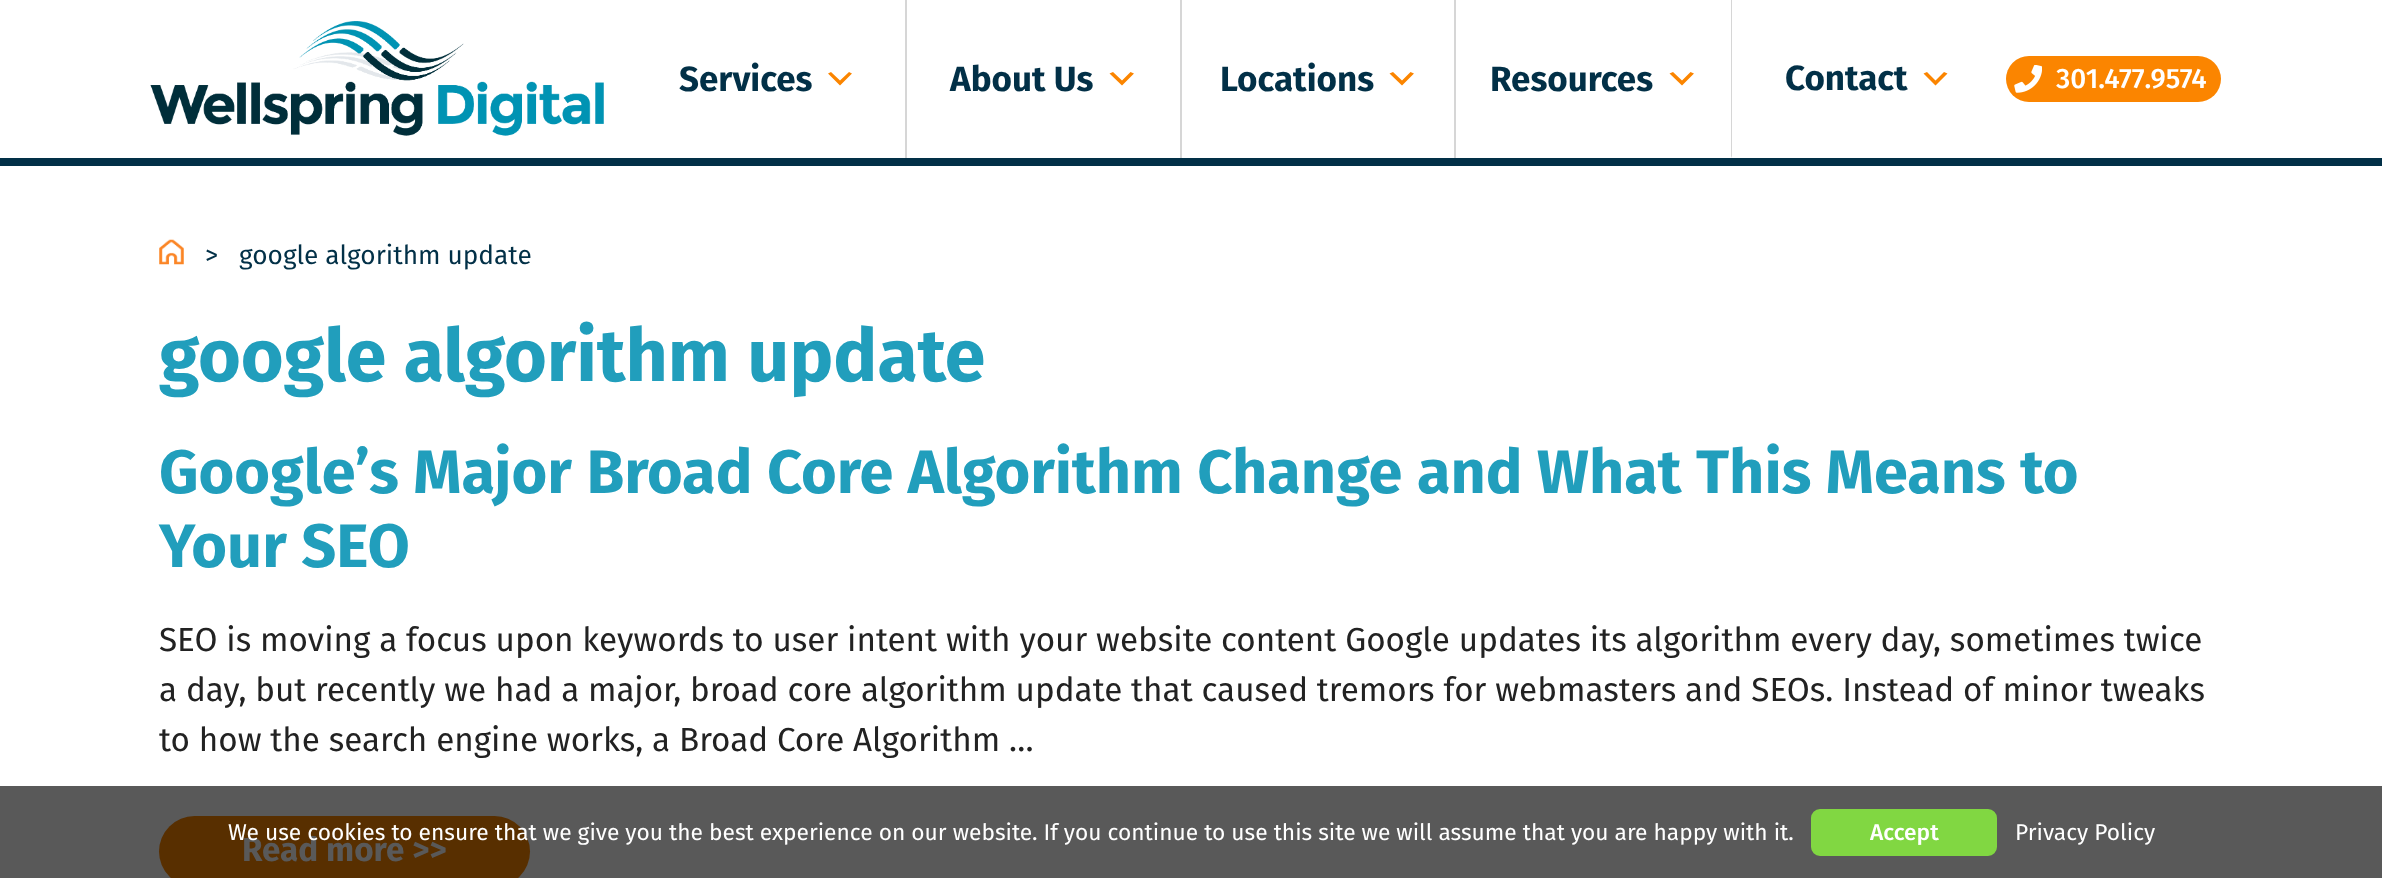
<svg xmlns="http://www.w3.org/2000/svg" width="2382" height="878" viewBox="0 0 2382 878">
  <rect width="100%" height="100%" fill="#fff"/>
  <path d="M0 786h2382v92H0z" fill="#595959"/>
  <path d="M0 158h2382v8H0z" fill="#023047"/>
  <image x="150" y="21" width="454" height="115" href="img/1.png"/>
  <path d="M831 72L840 80.5L849 72L852 73.5L840 85.5L828 73.5Z" fill="#fb8500"/>
  <path d="M905 0h2v158H905z" fill="#d6d6d6"/>
  <path d="M1113 72L1122 80.5L1130.5 72L1134 73.5L1122 85.5L1109.5 73.5Z" fill="#fb8500"/>
  <path d="M1180 0h2v158H1180z" fill="#d6d6d6"/>
  <path d="M1393 72L1402 80.5L1410.5 72L1414 73.5L1402 85.5L1389.5 73.5Z" fill="#fb8500"/>
  <path d="M1454 0h2v158H1454z" fill="#d6d6d6"/>
  <path d="M1673 72L1682 80.5L1690.5 72L1694 73.5L1682 85.5L1669.5 73.5Z" fill="#fb8500"/>
  <path d="M1731 158V0H1732V156Z" fill="#d6d6d6"/>
  <path d="M1927 72L1935.5 80.5L1944 72L1947.5 73.5L1935.5 85.5L1923.5 73.5Z" fill="#fb8500"/>
  <rect x="2006" y="56" width="215" height="46" rx="23" fill="#fb8500"/>
  <image x="2014" y="65" width="28" height="28" href="img/2.png"/>
  <image x="159" y="239" width="25" height="26" href="img/3.png"/>
  <rect x="159" y="816" width="371" height="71" rx="35.5" fill="#582f00"/>
  <rect x="1812" y="810" width="184" height="45" rx="8" fill="#81d742" stroke="#81d742" stroke-width="2"/>
  <g font-family="Fira Sans" font-size="35" font-weight="bold" fill="#023047">
    <text x="679" y="91">Services</text>
    <text x="950" y="91">About Us</text>
    <text x="1220" y="91">Locations</text>
    <text x="1490" y="91">Resources</text>
    <text x="1785" y="90">Contact</text>
  </g>
  <text x="2056" y="88" font-family="Fira Sans" font-size="28" font-weight="500" fill="#fff">301.477.9574</text>
  <g font-family="Fira Sans" font-size="26.25" fill="#023047">
    <text x="205" y="264">&gt;</text>
    <text x="239" y="264">google algorithm update</text>
  </g>
  <text x="159" y="381" font-family="Fira Sans" font-size="73.5" font-weight="bold" fill="#219ebc">google algorithm update</text>
  <g font-family="Fira Sans" font-size="61.25" font-weight="bold" fill="#219ebc">
    <text x="159" y="493">Google’s Major Broad Core Algorithm Change and What This Means to</text>
    <text x="159" y="567">Your SEO</text>
  </g>
  <g font-family="Fira Sans" font-size="33.25" fill="#222">
    <text x="159" y="651">SEO is moving a focus upon keywords to user intent with your website content Google updates its algorithm every day, sometimes twice</text>
    <text x="159" y="701">a day, but recently we had a major, broad core algorithm update that caused tremors for webmasters and SEOs. Instead of minor tweaks</text>
    <text x="159" y="751">to how the search engine works, a Broad Core Algorithm …</text>
  </g>
  <text x="242" y="861" font-family="Fira Sans" font-size="33.25" font-weight="bold" fill="#595959">Read more &gt;&gt;</text>
  <text x="228" y="840" font-family="Fira Sans" font-size="22.75" fill="#fff">We use cookies to ensure that we give you the best experience on our website. If you continue to use this site we will assume that you are happy with it.</text>
  <text x="1870" y="840" font-family="Fira Sans" font-size="22.75" font-weight="500" fill="#fff">Accept</text>
  <text x="2015" y="840" font-family="Fira Sans" font-size="22.75" fill="#fff">Privacy Policy</text>
</svg>
